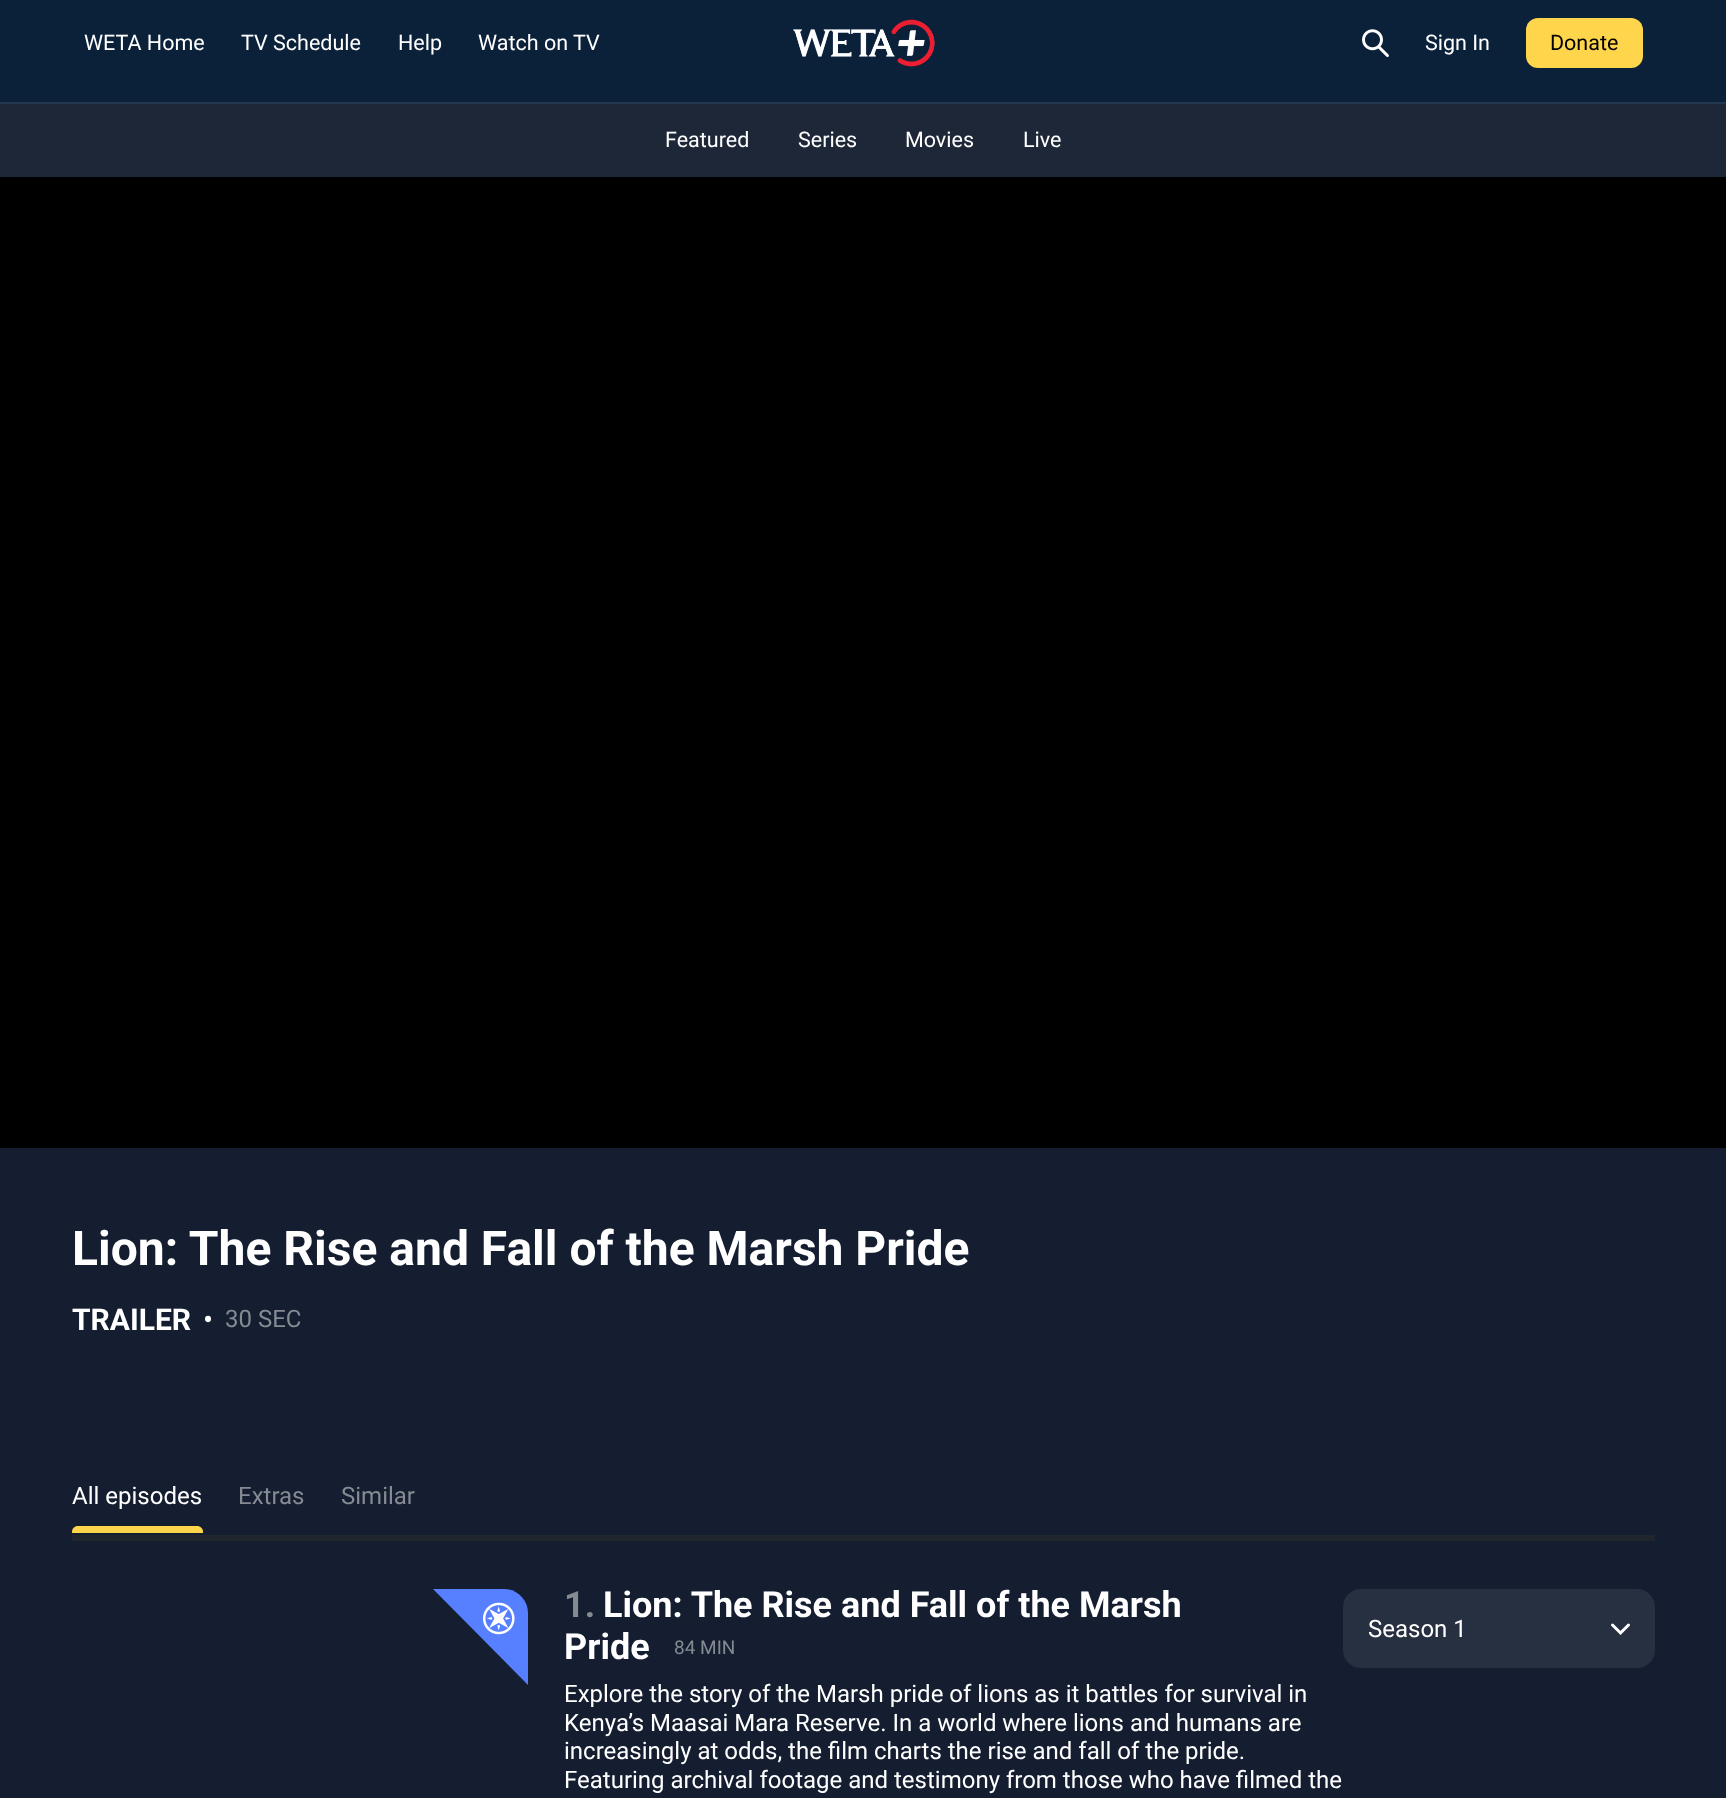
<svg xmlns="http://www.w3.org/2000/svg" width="1726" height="1798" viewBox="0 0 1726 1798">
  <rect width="100%" height="100%" fill="#141e30"/>
  <path d="M0 0h1726v102H0z" fill="#0b213a"/>
  <path d="M0 102h1726v2H0z" fill="#23374e"/>
  <image x="793" y="19" width="142" height="48" href="img/1.png"/>
  <image x="1362" y="29" width="27" height="29" href="img/2.png"/>
  <rect x="1526" y="18" width="117" height="50" rx="12" fill="#ffd54b"/>
  <path d="M0 104h1726v73H0z" fill="#1d2738"/>
  <path d="M0 177h1726v971H0z" fill="#000"/>
  <path d="M72 1535h1583v6H72z" fill="#20252e"/>
  <path d="M78 1526H197C200.5 1526 203 1528.5 203 1532V1533H72V1532C72 1528.5 74.5 1526 78 1526Z" fill="#ffd54b"/>
  <path d="M528 1685V1613C528 1600 517 1589 504 1589H433Z" fill="#5680ff"/>
  <image x="482" y="1602" width="33" height="33" href="img/3.png"/>
  <rect x="1343" y="1589" width="312" height="79" rx="18" fill="#273041"/>
  <path d="M1628.5 1625L1620.5 1633L1612.5 1625" fill="none" stroke="#fff" stroke-width="3" stroke-linecap="round"/>
  <g font-family="Roboto" font-size="21.5" fill="#fff">
    <text x="84" y="50">WETA Home</text>
    <text x="241" y="50">TV Schedule</text>
    <text x="398" y="50">Help</text>
    <text x="478" y="50">Watch on TV</text>
    <text x="1425" y="50">Sign In</text>
  </g>
  <text x="1550" y="50" font-family="Roboto" font-size="21.5" fill="#000">Donate</text>
  <g font-family="Roboto" font-size="21.5" fill="#fff">
    <text x="665" y="147">Featured</text>
    <text x="798" y="147">Series</text>
    <text x="905" y="147">Movies</text>
    <text x="1023" y="147">Live</text>
  </g>
  <text x="72" y="1265" font-family="Roboto" font-size="48" font-weight="bold" fill="#fff">Lion: The Rise and Fall of the Marsh Pride</text>
  <text x="72" y="1330" font-family="Roboto" font-size="30" font-weight="bold" fill="#fff">TRAILER</text>
  <text x="203" y="1330" font-family="Roboto" font-size="30" fill="#fff">•</text>
  <text x="225" y="1327" font-family="Roboto" font-size="24" fill="#858a93">30 SEC</text>
  <text x="72" y="1504" font-family="Roboto" font-size="24" fill="#fff">All episodes</text>
  <g font-family="Roboto" font-size="24" fill="#858a93">
    <text x="238" y="1504">Extras</text>
    <text x="341" y="1504">Similar</text>
  </g>
  <text x="564" y="1617" font-family="Roboto" font-size="36" font-weight="bold" fill="#858a93">1.</text>
  <g font-family="Roboto" font-size="36" font-weight="bold" fill="#fff">
    <text x="603" y="1617">Lion: The Rise and Fall of the Marsh</text>
    <text x="564" y="1659">Pride</text>
  </g>
  <text x="674" y="1654" font-family="Roboto" font-size="19" fill="#858a93">84 MIN</text>
  <g font-family="Roboto" font-size="24" fill="#fff">
    <text x="564" y="1702">Explore the story of the Marsh pride of lions as it battles for survival in</text>
    <text x="564" y="1731">Kenya’s Maasai Mara Reserve. In a world where lions and humans are</text>
    <text x="564" y="1759">increasingly at odds, the film charts the rise and fall of the pride.</text>
    <text x="564" y="1788">Featuring archival footage and testimony from those who have filmed the</text>
    <text x="1368" y="1637">Season 1</text>
  </g>
</svg>
